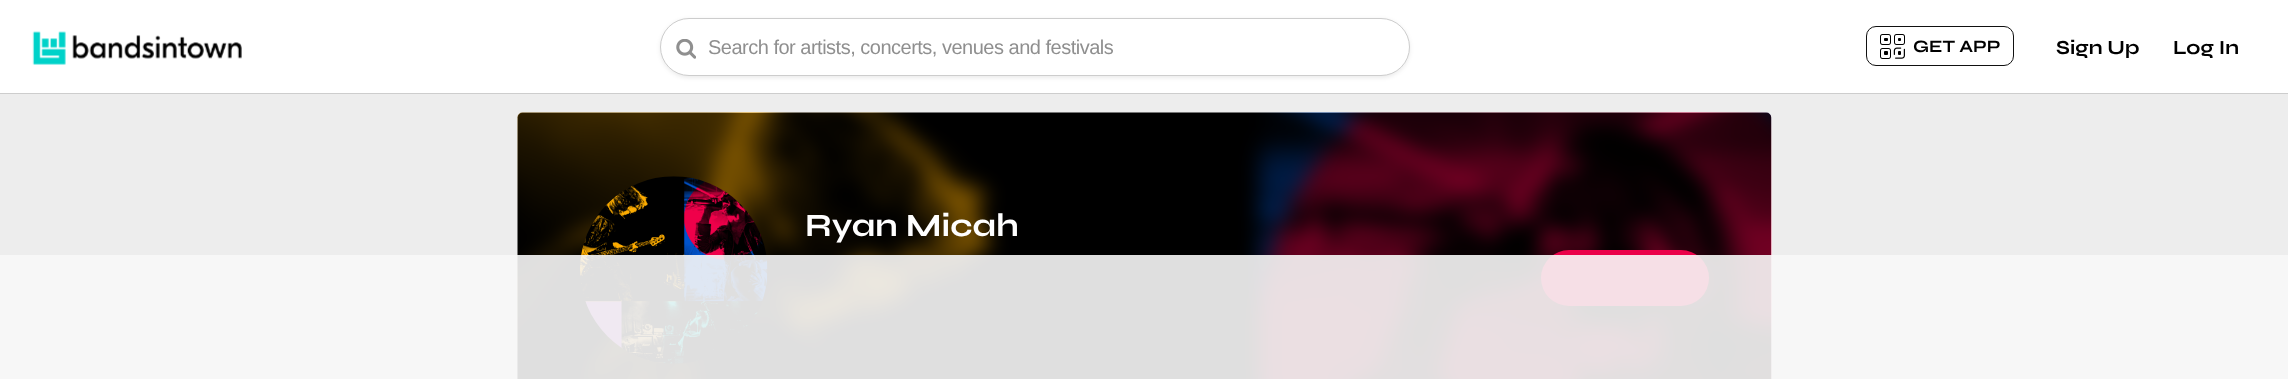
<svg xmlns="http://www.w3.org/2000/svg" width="2288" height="379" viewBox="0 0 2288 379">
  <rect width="100%" height="100%" fill="#ededed"/>
  <path d="M0 0h2288v93H0z" fill="#fff"/>
  <path d="M0 93h2288v1H0z" fill="#cdcdcd"/>
  <image x="32" y="31" width="210" height="34" href="img/1.png"/>
  <rect x="660" y="19" width="750" height="59" rx="29.5" fill="#00000014" filter="blur(2px)"/>
  <rect x="660.5" y="18.5" width="749" height="57" rx="28.5" fill="#fff" stroke="#cdcdcd"/>
  <image x="676" y="39" width="20" height="20" href="img/2.png"/>
  <rect x="1866.5" y="26.5" width="147" height="39" rx="9.5" fill="none" stroke="#111"/>
  <image x="1880" y="34" width="25" height="25" href="img/3.png"/>
  <image x="517" y="112" width="1255" height="267" href="img/4.png"/>
  <rect x="518" y="113" width="1253" height="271" rx="5" fill="#00000080"/>
  <image x="580" y="176" width="188" height="188" href="img/5.png"/>
  <rect x="1541" y="250" width="168" height="56" rx="28" fill="#eb0049"/>
  <path d="M0 255h2288v124H0z" fill="#f7f7f7e6"/>
  <text x="708" y="54" font-family="Liberation Sans" font-size="20" letter-spacing="-0.5" fill="#8f8f8f">Search for artists, concerts, venues and festivals</text>
  <text x="1913" y="52" font-family="Syne" font-size="17.5" font-weight="bold" fill="#000">GET APP</text>
  <g font-family="Syne" font-size="20" font-weight="bold" fill="#000">
    <text x="2056" y="54">Sign Up</text>
    <text x="2173" y="54">Log In</text>
  </g>
  <text x="805" y="236" font-family="Syne" font-size="32.5" font-weight="bold" fill="#fff">Ryan Micah</text>
</svg>
